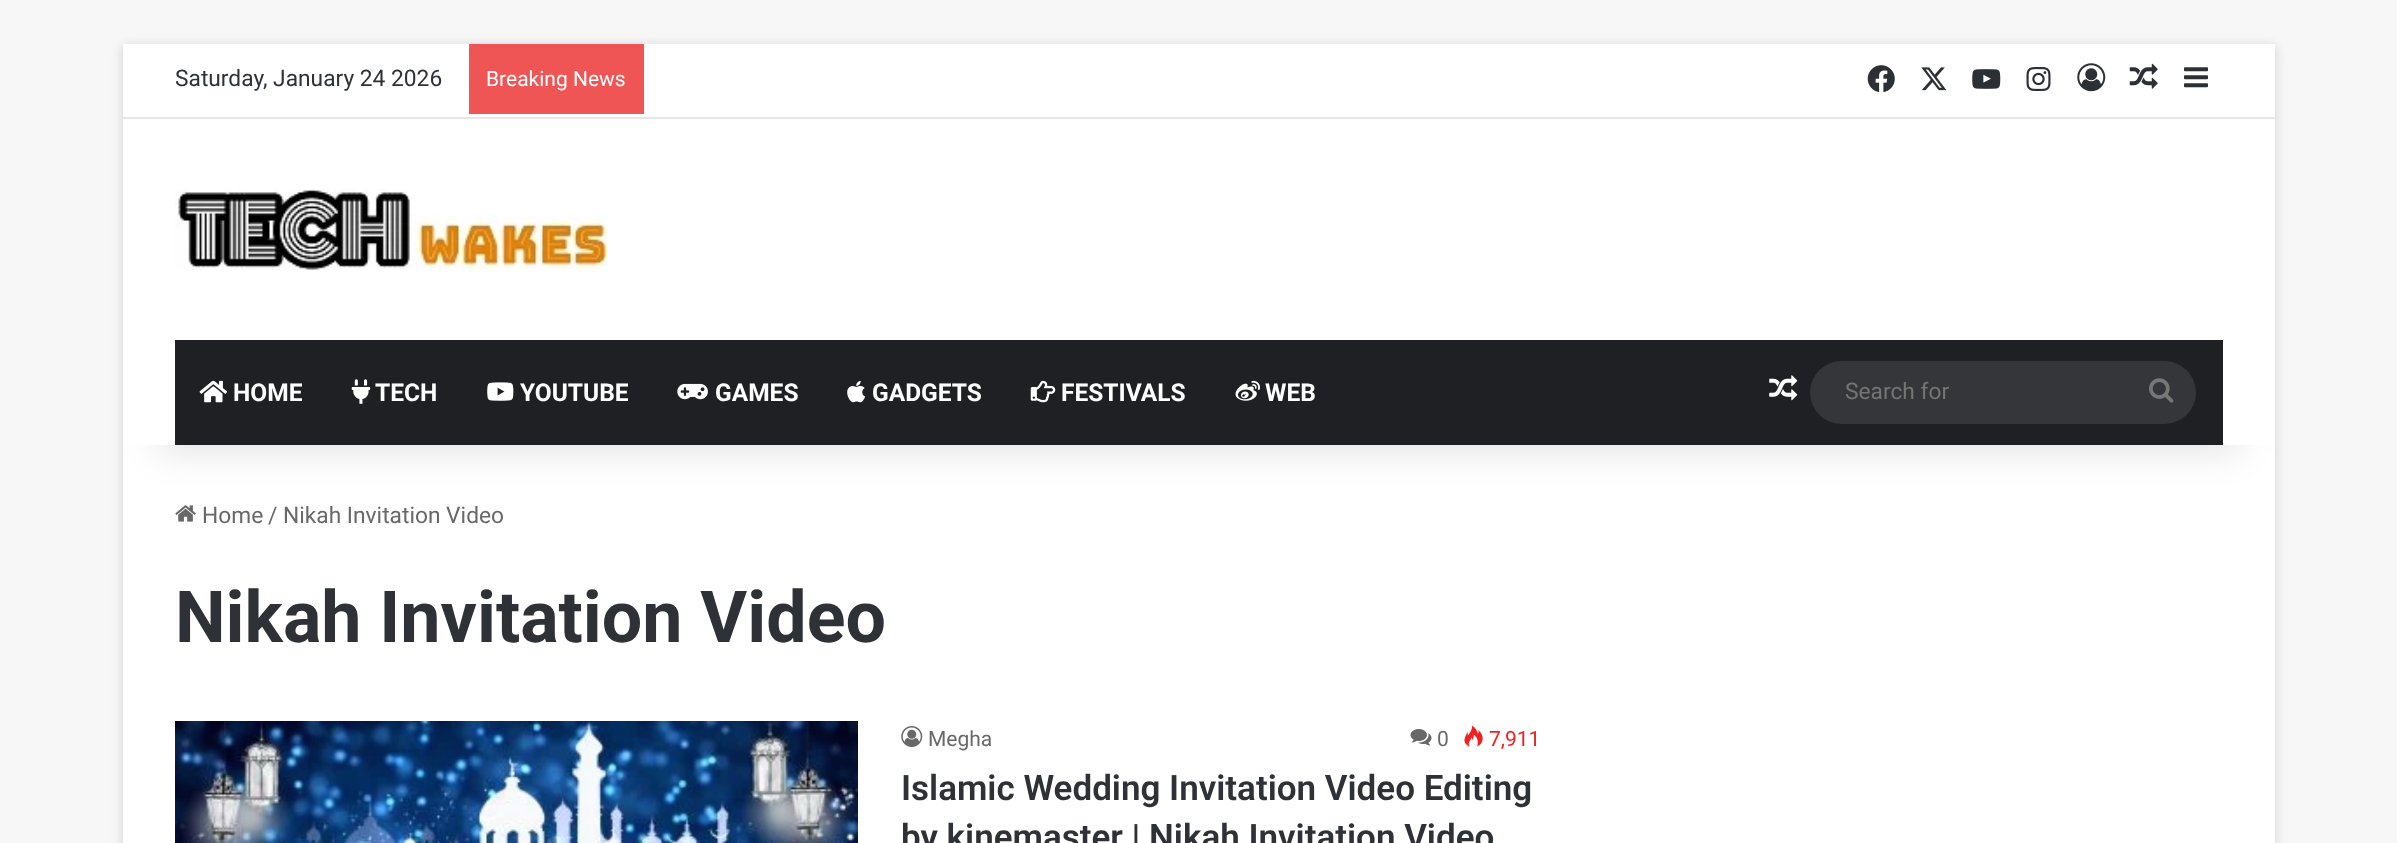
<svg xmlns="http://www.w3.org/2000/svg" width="2397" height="843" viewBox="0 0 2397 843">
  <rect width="100%" height="100%" fill="#f7f7f7"/>
  <path d="M123 46h2152v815H123z" fill="#ababab80" filter="blur(6px)"/>
  <path d="M123 445h2152v398H123z" fill="#fff"/>
  <image x="175" y="505" width="21" height="17" href="img/18.png"/>
  <path d="M158 123h2082v330H158z" fill="#0000001a" filter="blur(17.5px)"/>
  <path d="M123 44h2152v401H123z" fill="#fff"/>
  <path d="M123 117h2152v2H123z" fill="#e6e6e6"/>
  <path d="M469 44h175v70H469z" fill="#f05555"/>
  <image x="1867" y="65" width="28" height="28" href="img/1.png"/>
  <image x="1921" y="67" width="26" height="24" href="img/2.png"/>
  <image x="1972" y="69" width="29" height="20" href="img/3.png"/>
  <image x="2026" y="67" width="25" height="24" href="img/4.png"/>
  <image x="2077" y="63" width="29" height="29" href="img/5.png"/>
  <image x="2129" y="63" width="29" height="26" href="img/6.png"/>
  <image x="2184" y="67" width="24" height="21" href="img/7.png"/>
  <image x="175" y="189" width="433" height="81" href="img/8.png"/>
  <path d="M175 340h2048v105H175z" fill="#1f2024"/>
  <image x="199" y="380" width="29" height="23" href="img/9.png"/>
  <image x="351" y="379" width="20" height="25" href="img/10.png"/>
  <image x="487" y="382" width="27" height="19" href="img/11.png"/>
  <image x="677" y="383" width="31" height="17" href="img/12.png"/>
  <image x="847" y="380" width="19" height="23" href="img/13.png"/>
  <image x="1030" y="380" width="26" height="23" href="img/14.png"/>
  <image x="1235" y="380" width="25" height="21" href="img/15.png"/>
  <image x="1769" y="375" width="29" height="26" href="img/16.png"/>
  <rect x="1810" y="361" width="386" height="63" rx="31.5" fill="#35363a"/>
  <image x="2149" y="378" width="25" height="25" href="img/17.png"/>
  <image x="175" y="721" width="683" height="122" href="img/19.png"/>
  <image x="901" y="726" width="22" height="21" href="img/20.png"/>
  <image x="1410" y="729" width="22" height="17" href="img/21.png"/>
  <image x="1464" y="725" width="19" height="22" href="img/22.png"/>
  <text x="175" y="86" font-family="Roboto" font-size="22.75" fill="#2e3136">Saturday, January 24 2026</text>
  <text x="486" y="86" font-family="Roboto" font-size="21" fill="#fff">Breaking News</text>
  <g font-family="Roboto" font-size="24.5" font-weight="bold" fill="#fff">
    <text x="233" y="401">HOME</text>
    <text x="375" y="401">TECH</text>
    <text x="520" y="401">YOUTUBE</text>
    <text x="715" y="401">GAMES</text>
    <text x="872" y="401">GADGETS</text>
    <text x="1061" y="401">FESTIVALS</text>
    <text x="1265" y="401">WEB</text>
  </g>
  <text x="1845" y="399" font-family="Roboto" font-size="22.75" fill="#757575">Search for</text>
  <g font-family="Roboto" font-size="22.75" fill="#686868">
    <text x="202" y="523">Home</text>
    <text x="268" y="523">/</text>
    <text x="283" y="523">Nikah Invitation Video</text>
  </g>
  <text x="175" y="642" font-family="Roboto" font-size="71.75" font-weight="bold" fill="#2e3136">Nikah Invitation Video</text>
  <g font-family="Roboto" font-size="21" fill="#686868">
    <text x="928" y="746">Megha</text>
    <text x="1437" y="746">0</text>
  </g>
  <text x="1489" y="746" font-family="Roboto" font-size="21" fill="#f12020">7,911</text>
  <g font-family="Roboto" font-size="35" font-weight="600" fill="#2e3136">
    <text x="901" y="800">Islamic Wedding Invitation Video Editing</text>
    <text x="901" y="849">by kinemaster | Nikah Invitation Video</text>
  </g>
</svg>
